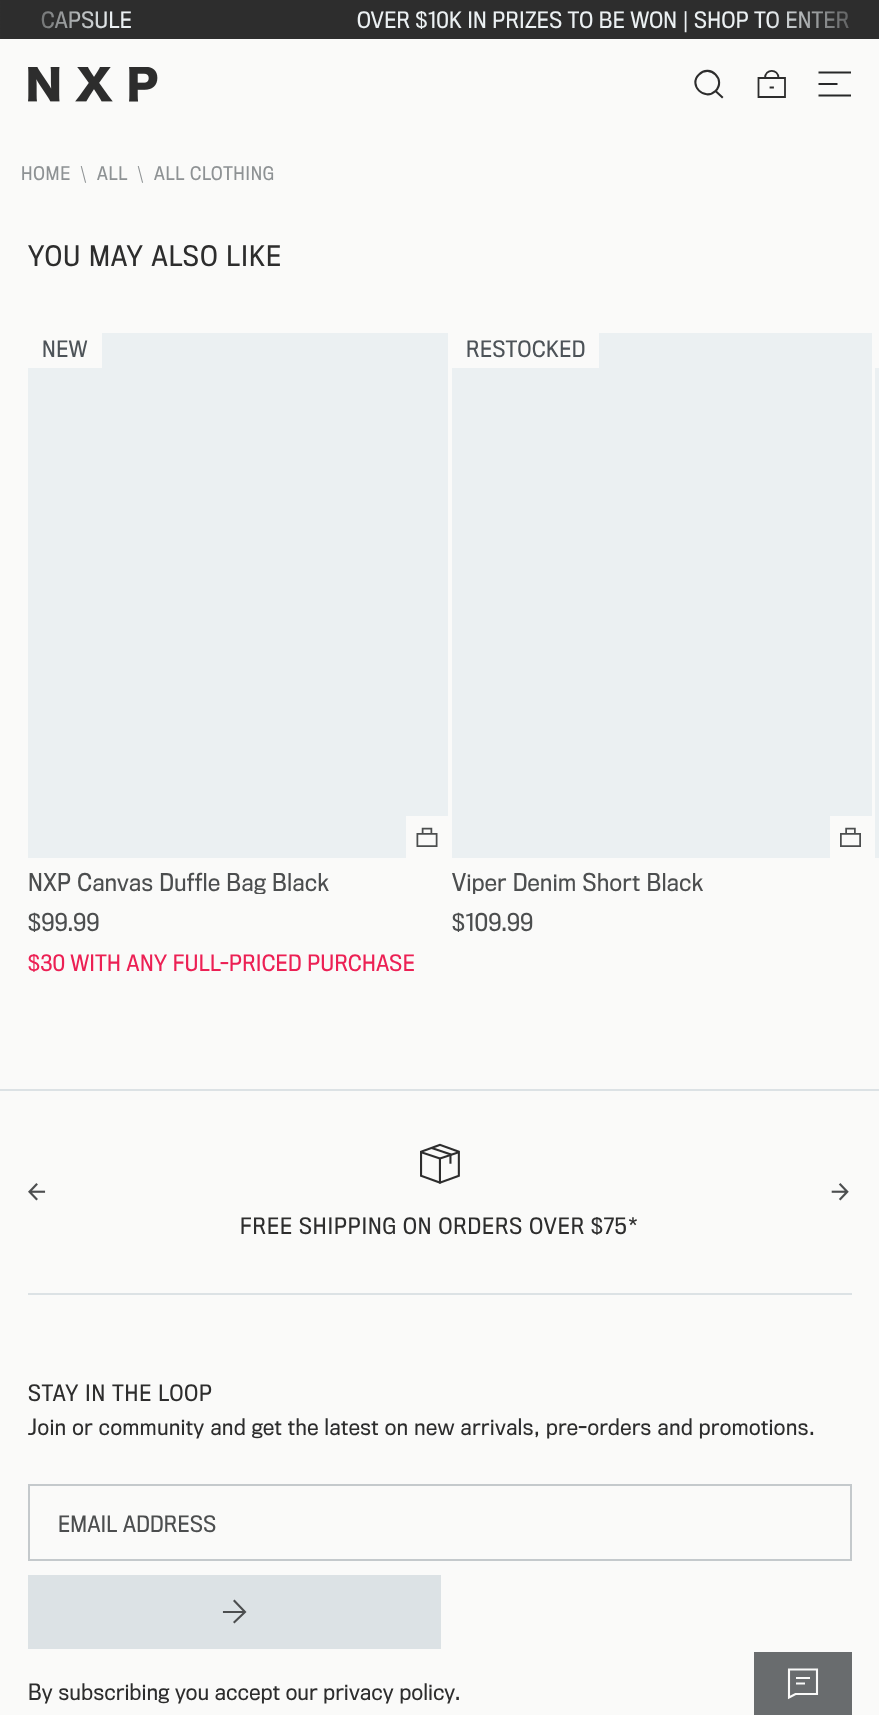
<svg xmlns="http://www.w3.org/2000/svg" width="879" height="1715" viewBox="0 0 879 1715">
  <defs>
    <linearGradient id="g1" gradientUnits="userSpaceOnUse" x1="0" y1="19" x2="112" y2="19"><stop offset="0" stop-color="#2d2d2d"/><stop offset="1" stop-color="#2d2d2d" stop-opacity="0"/></linearGradient>
    <linearGradient id="g2" gradientUnits="userSpaceOnUse" x1="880" y1="19" x2="768" y2="19"><stop offset="0" stop-color="#2d2d2d"/><stop offset="1" stop-color="#2d2d2d" stop-opacity="0"/></linearGradient>
    <clipPath id="clip1"><path d="M28 872h420v22H28z"/></clipPath>
    <clipPath id="clip2"><path d="M452 872h420v22H452z"/></clipPath>
  </defs>
  <rect width="100%" height="100%" fill="#fafaf9"/>
  <path d="M1 0h878v39H1z" fill="#2d2d2d"/>
  <image x="28" y="67" width="130" height="35" href="img/1.png"/>
  <path d="M715.5 91C726.5 80 710 63.5 699 74.5C688 85 704.5 101.5 715.5 91ZM715.5 91L722 97" fill="none" stroke="#2d2d2d" stroke-width="2.1" stroke-linecap="square"/>
  <path d="M773 87.5H770.5M778.5 78C778.5 68.5 765 68.5 765 78M758.5 78H785V97H758.5Z" fill="none" stroke="#2d2d2d" stroke-width="1.8" stroke-linecap="square"/>
  <path d="M818.5 72.5H851M818.5 95.5H851M818.5 84H837.5" fill="none" stroke="#272829" stroke-width="2.1"/>
  <path d="M28 333h420v525H28z" fill="#ebf0f2"/>
  <path d="M406 816h42v42H406z" fill="#fafaf9"/>
  <image x="416" y="827" width="22" height="20" href="img/2.png"/>
  <path d="M28 333h74v35H28z" fill="#fafaf9"/>
  <path d="M452 333h420v525H452z" fill="#ebf0f2"/>
  <path d="M830 816h42v42H830z" fill="#fafaf9"/>
  <image x="840" y="827" width="21" height="20" href="img/3.png"/>
  <path d="M452 333h147v35H452z" fill="#fafaf9"/>
  <path d="M875 368h4v490H875z" fill="#ebf0f2"/>
  <path d="M0 1089h879v2H0z" fill="#dce2e5"/>
  <image x="28" y="1183" width="18" height="18" href="img/4.png"/>
  <image x="831" y="1183" width="18" height="18" href="img/5.png"/>
  <image x="420" y="1143" width="40" height="41" href="img/6.png"/>
  <path d="M28 1293h824v2H28z" fill="#dce2e5"/>
  <path d="M29 1485h822v75H29z" fill="none" stroke="#c4c9cc" stroke-width="2"/>
  <path d="M28 1575h413v74H28z" fill="#dce2e5"/>
  <path d="M234.5 1622L245 1612L234.5 1601M224 1612H243" fill="none" stroke="#4c4e4f" stroke-width="2.1" stroke-linecap="square"/>
  <path d="M754 1652h98v63H754z" fill="#696c6e"/>
  <path d="M796 1683.5H805M796 1678H810M817 1669.5V1694H795.5L789 1697.5V1669.5Z" fill="none" stroke="#fafaf9" stroke-width="2.1"/>
  <text x="41" y="28" font-family="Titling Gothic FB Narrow" font-size="21" letter-spacing="0.4" fill="#ebf0f2">CAPSULE</text>
  <path d="M0 0h107v39H0z" fill="url(#g1)"/>
  <text x="357" y="28" font-family="Titling Gothic FB Narrow" font-size="21" letter-spacing="0.4" fill="#ebf0f2">OVER $10K IN PRIZES TO BE WON | SHOP TO ENTER</text>
  <path d="M770 11h80v17H770z" fill="url(#g2)"/>
  <g font-family="Titling Gothic FB Narrow" font-size="17.5" letter-spacing="0.75" fill="#8e9294">
    <text x="21" y="180">HOME</text>
    <text x="81" y="180">\</text>
    <text x="97" y="180">ALL</text>
    <text x="138" y="180">\</text>
    <text x="154" y="180">ALL CLOTHING</text>
  </g>
  <text x="28" y="266" font-family="Titling Gothic FB Narrow" font-size="26.25" letter-spacing="1.25" fill="#2d2d2d">YOU MAY ALSO LIKE</text>
  <text x="42" y="357" font-family="Titling Gothic FB Narrow" font-size="21" letter-spacing="0.63" fill="#4d5358">NEW</text>
  <g clip-path="url(#clip1)">
    <text x="28" y="891" font-family="Titling Gothic FB Narrow" font-size="22.75" letter-spacing="0.5" fill="#4c4e4f">NXP Canvas Duffle Bag Black</text>
  </g>
  <text x="28" y="931" font-family="Titling Gothic FB Narrow" font-size="22.75" letter-spacing="0.5" fill="#4c4e4f">$99.99</text>
  <text x="28" y="971" font-family="Titling Gothic FB Narrow" font-size="21" letter-spacing="0.45" fill="#ec2054">$30 WITH ANY FULL-PRICED PURCHASE</text>
  <text x="466" y="357" font-family="Titling Gothic FB Narrow" font-size="21" letter-spacing="0.63" fill="#4d5358">RESTOCKED</text>
  <g clip-path="url(#clip2)">
    <text x="452" y="891" font-family="Titling Gothic FB Narrow" font-size="22.75" letter-spacing="0.5" fill="#4c4e4f">Viper Denim Short Black</text>
  </g>
  <text x="452" y="931" font-family="Titling Gothic FB Narrow" font-size="22.75" letter-spacing="0.5" fill="#4c4e4f">$109.99</text>
  <g font-family="Titling Gothic FB Narrow" font-size="21" letter-spacing="1.05" fill="#2d2d2d">
    <text x="240" y="1234">FREE SHIPPING ON ORDERS OVER $75*</text>
    <text x="28" y="1401">STAY IN THE LOOP</text>
  </g>
  <text x="28" y="1435" font-family="Titling Gothic FB Narrow" font-size="21" letter-spacing="0.63" fill="#2d2d2d">Join or community and get the latest on new arrivals, pre-orders and promotions.</text>
  <text x="58" y="1532" font-family="Titling Gothic FB Narrow" font-size="21" letter-spacing="0.4" fill="#4c4e4f">EMAIL ADDRESS</text>
  <text x="28" y="1700" font-family="Titling Gothic FB Narrow" font-size="21" letter-spacing="0.45" fill="#2d2d2d">By subscribing you accept our privacy policy.</text>
</svg>
